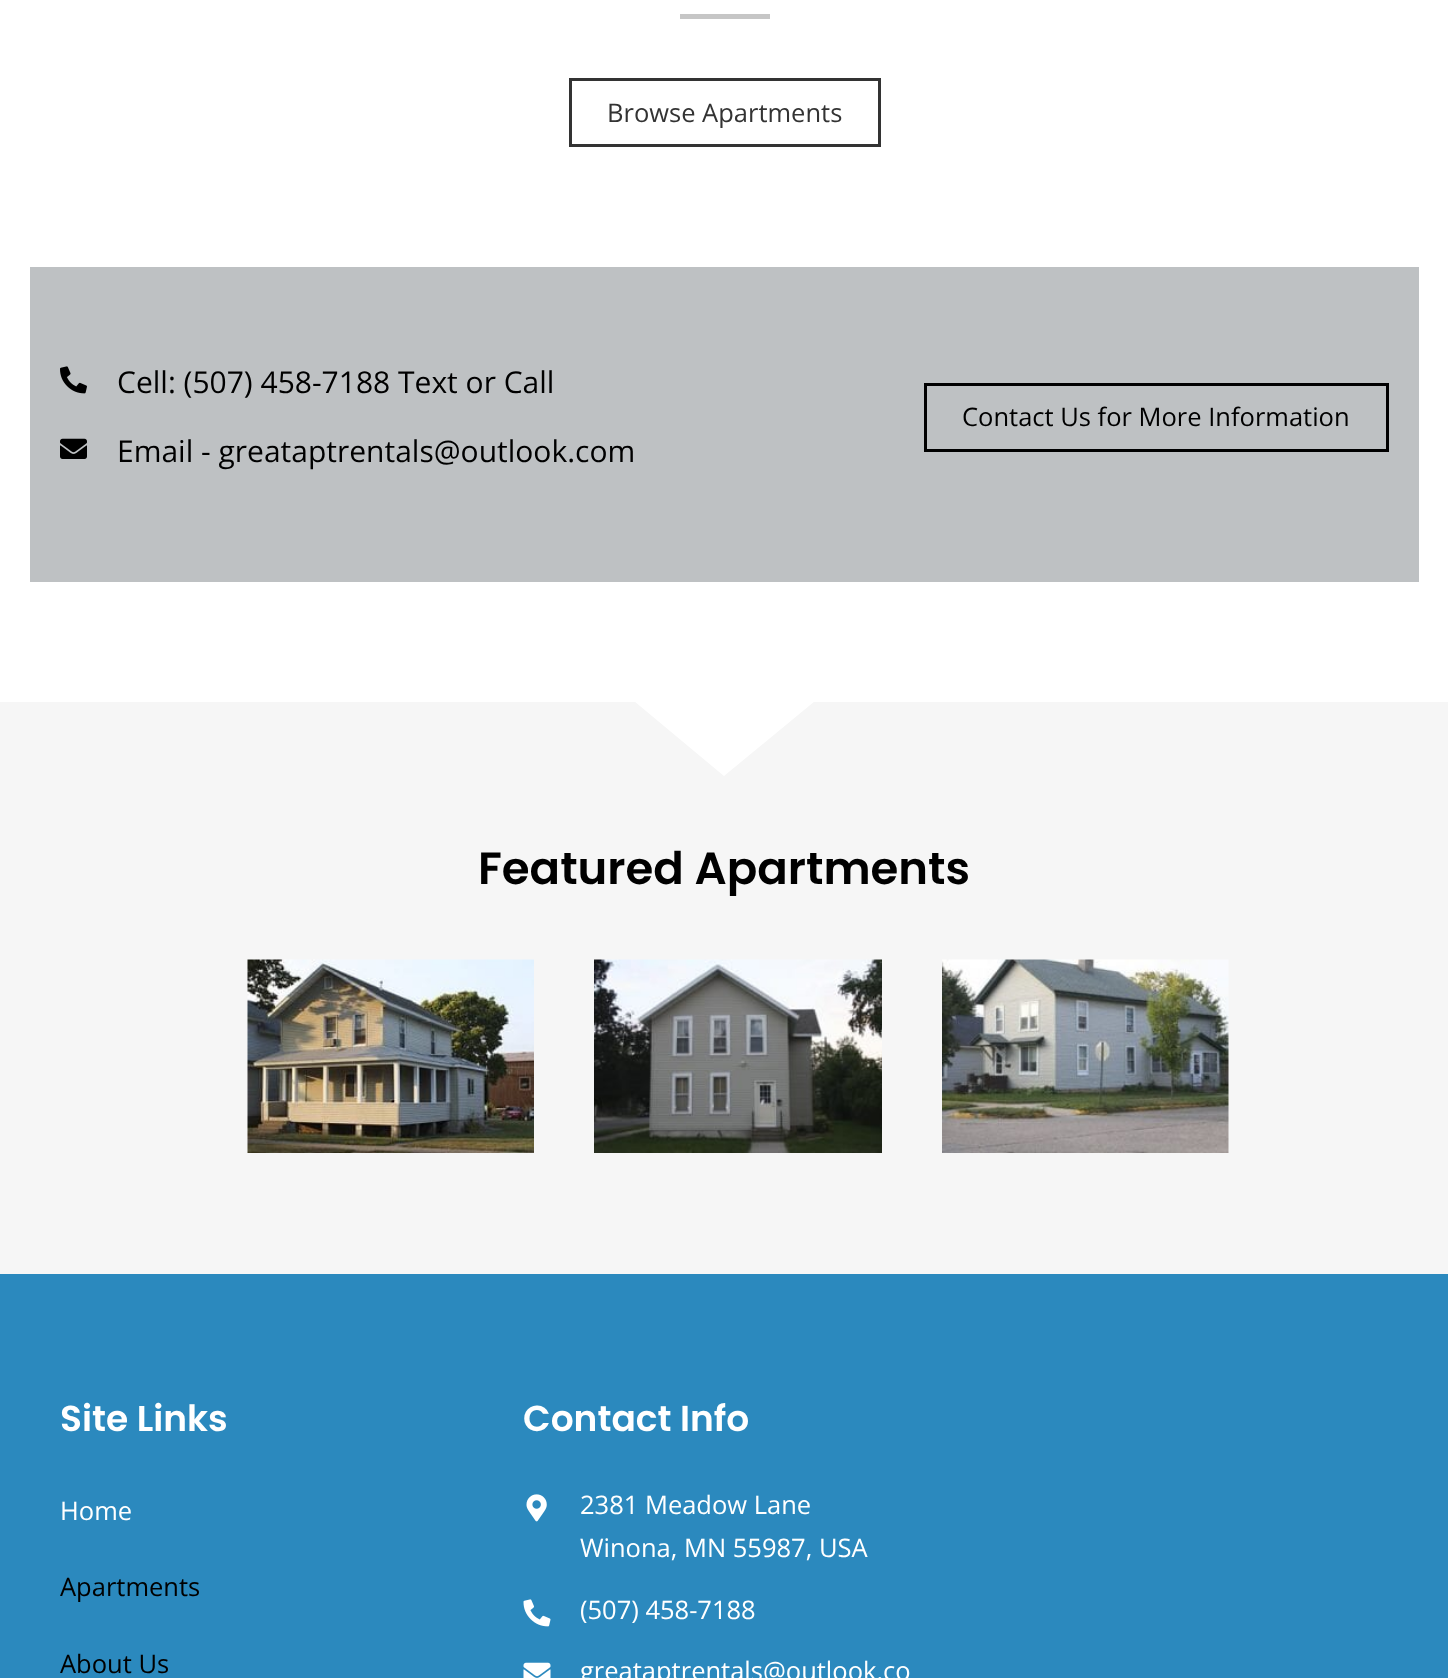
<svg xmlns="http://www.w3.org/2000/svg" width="1448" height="1678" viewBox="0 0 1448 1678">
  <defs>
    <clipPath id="clip1"><path d="M0 701h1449v75H0z"/></clipPath>
  </defs>
  <rect width="100%" height="100%" fill="#fff"/>
  <path d="M680 14h90v5H680z" fill="#c6c6c6"/>
  <path d="M570.5 79.5h309v66H570.5z" fill="none" stroke="#333" stroke-width="3"/>
  <path d="M30 267h1389v315H30z" fill="#bec1c3"/>
  <image x="60" y="366" width="27" height="28" href="img/1.png"/>
  <image x="60" y="438" width="27" height="21" href="img/2.png"/>
  <path d="M925.5 384.5h462v66H925.5z" fill="none" stroke="#000" stroke-width="3"/>
  <path d="M0 702h1448v572H0z" fill="#f6f6f6"/>
  <g clip-path="url(#clip1)">
    <path d="M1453 701H815L724 776L634 701H-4V700H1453Z" fill="#fff"/>
  </g>
  <image x="247" y="959" width="287" height="194" href="img/3.png"/>
  <image x="594" y="959" width="288" height="194" href="img/4.png"/>
  <image x="942" y="959" width="287" height="194" href="img/5.png"/>
  <path d="M0 1274h1448v404H0z" fill="#2b89be"/>
  <image x="526" y="1494" width="21" height="28" href="img/6.png"/>
  <image x="523" y="1599" width="28" height="28" href="img/7.png"/>
  <image x="523" y="1662" width="28" height="16" href="img/8.png"/>
  <text x="607" y="122" font-family="Open Sans" font-size="25.5" fill="#333">Browse Apartments</text>
  <g font-family="Open Sans" font-size="30" fill="#000">
    <text x="117" y="393">Cell: (507) 458-7188 Text or Call</text>
    <text x="117" y="462">Email - greataptrentals@outlook.com</text>
  </g>
  <text x="962" y="426" font-family="Open Sans" font-size="25.5" fill="#000">Contact Us for More Information</text>
  <text x="478" y="884" font-family="Poppins" font-size="45" font-weight="600" fill="#000">Featured Apartments</text>
  <text x="60" y="1431" font-family="Poppins" font-size="36" font-weight="600" fill="#fff">Site Links</text>
  <text x="60" y="1520" font-family="Open Sans" font-size="25.5" fill="#fff">Home</text>
  <g font-family="Open Sans" font-size="25.5" fill="#000">
    <text x="60" y="1596">Apartments</text>
    <text x="60" y="1673">About Us</text>
  </g>
  <text x="523" y="1431" font-family="Poppins" font-size="36" font-weight="600" fill="#fff">Contact Info</text>
  <g font-family="Open Sans" font-size="25.5" fill="#fff">
    <text x="580" y="1514">2381 Meadow Lane</text>
    <text x="580" y="1557">Winona, MN 55987, USA</text>
    <text x="580" y="1619">(507) 458-7188</text>
    <text x="580" y="1680">greataptrentals@outlook.co</text>
  </g>
</svg>
